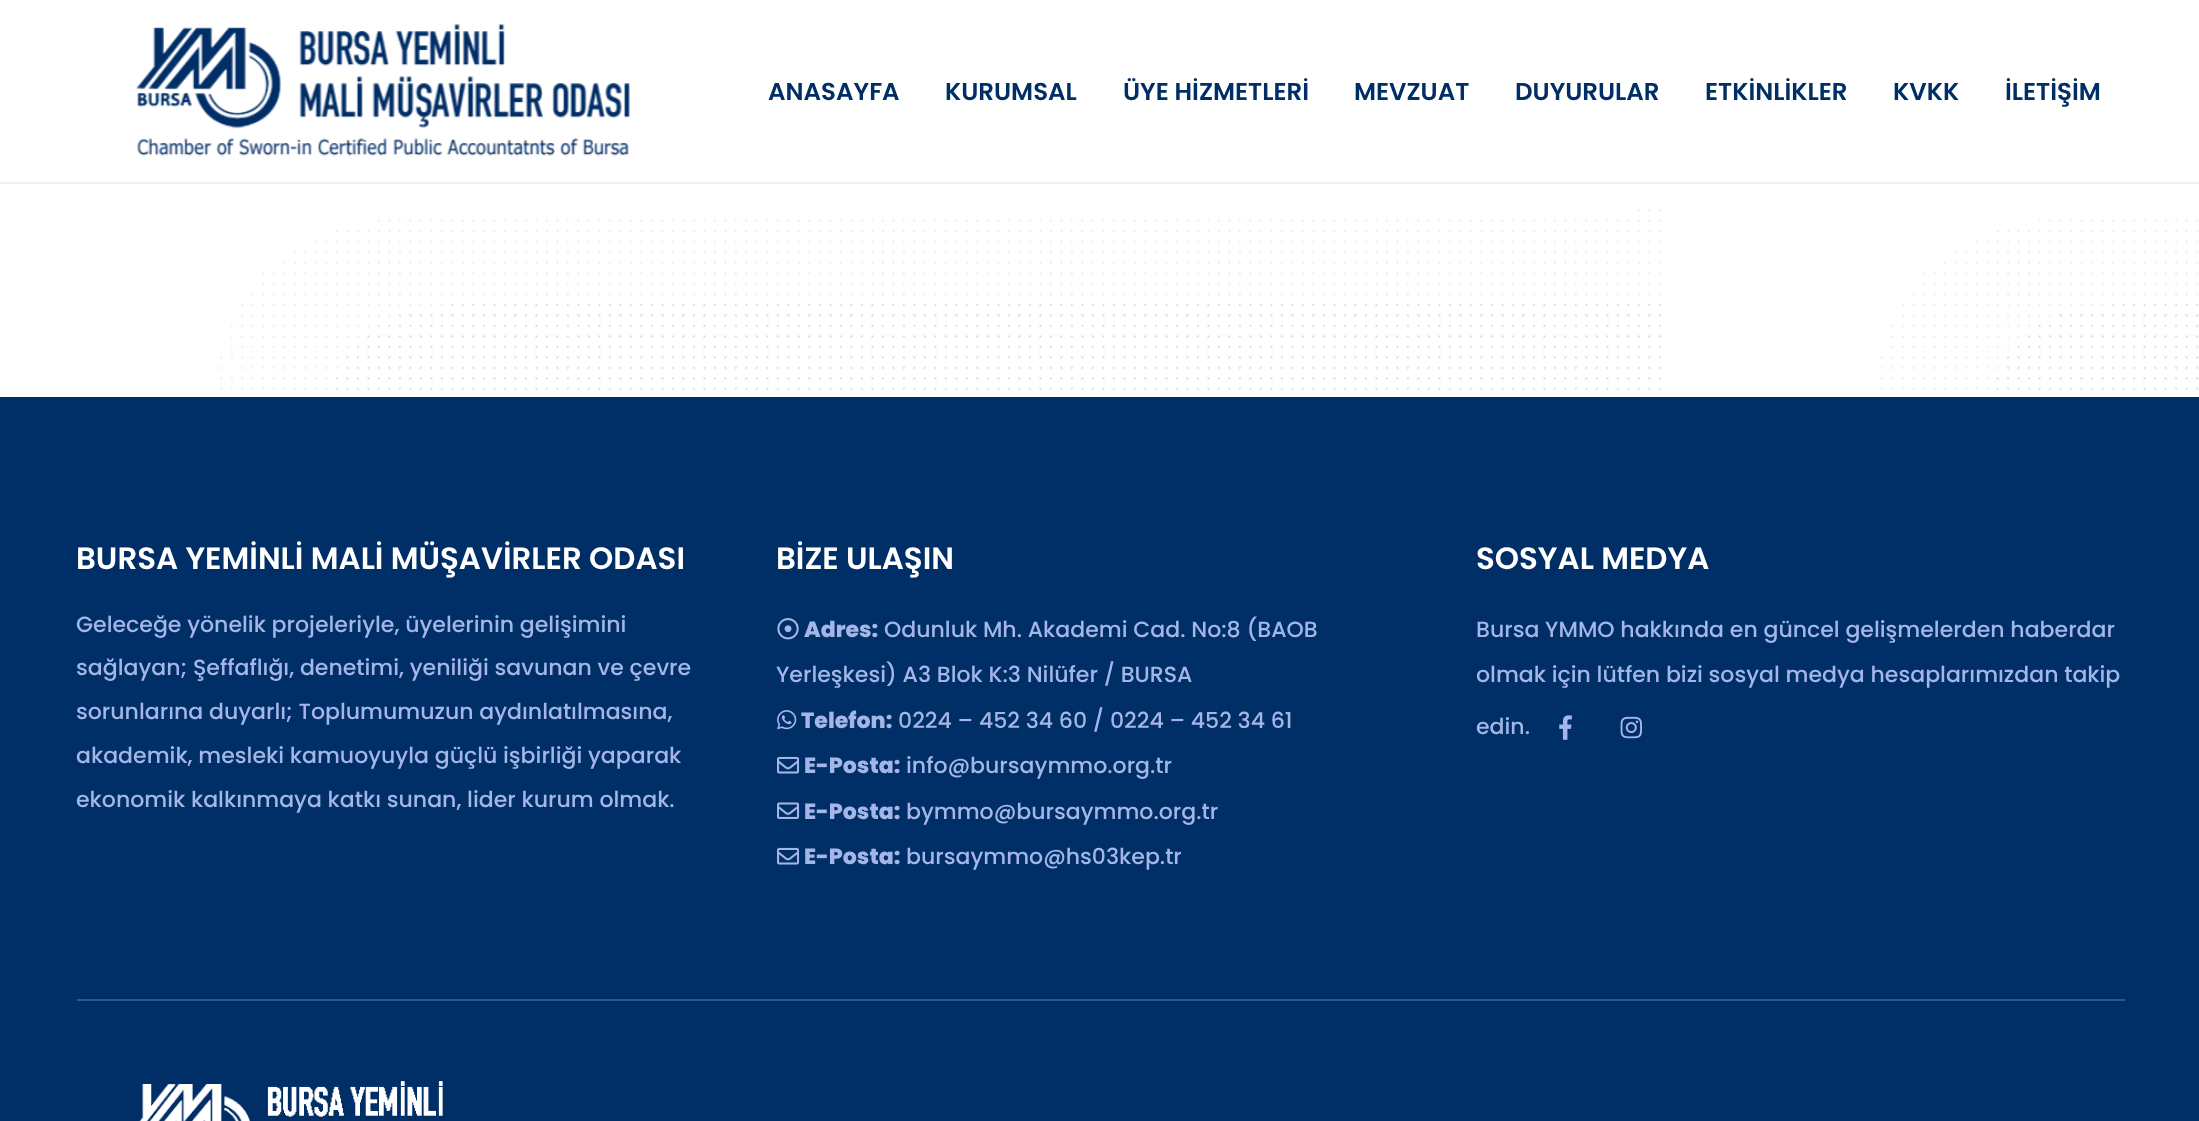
<svg xmlns="http://www.w3.org/2000/svg" width="2199" height="1121" viewBox="0 0 2199 1121">
  <rect width="100%" height="100%" fill="#fff"/>
  <path d="M0 182V184H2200V2V182Z" fill="#f0f0f0"/>
  <image x="136" y="24" width="494" height="132" href="img/1.png"/>
  <image x="0" y="209" width="2199" height="181" href="img/2.png"/>
  <path d="M0 397h2199v724H0z" fill="#002e66"/>
  <image x="777" y="618" width="22" height="22" href="img/3.png"/>
  <image x="777" y="710" width="20" height="20" href="img/4.png"/>
  <image x="777" y="756" width="23" height="18" href="img/5.png"/>
  <image x="777" y="802" width="23" height="17" href="img/6.png"/>
  <image x="777" y="847" width="23" height="18" href="img/5.png"/>
  <image x="1559" y="715" width="13" height="25" href="img/7.png"/>
  <image x="1620" y="716" width="22" height="23" href="img/8.png"/>
  <path d="M77 999h2048v2H77z" fill="#335885"/>
  <image x="139" y="1081" width="304" height="40" href="img/9.png"/>
  <g font-family="Poppins" font-size="24.5" font-weight="600" fill="#002e66">
    <text x="768" y="100">ANASAYFA</text>
    <text x="945" y="100">KURUMSAL</text>
    <text x="1123" y="100">ÜYE HİZMETLERİ</text>
    <text x="1354" y="100">MEVZUAT</text>
    <text x="1515" y="100">DUYURULAR</text>
    <text x="1705" y="100">ETKİNLİKLER</text>
    <text x="1893" y="100">KVKK</text>
    <text x="2005" y="100">İLETİŞİM</text>
  </g>
  <text x="76" y="569" font-family="Poppins" font-size="30.9" font-weight="600" fill="#fff">BURSA YEMİNLİ MALİ MÜŞAVİRLER ODASI</text>
  <g font-family="Poppins" font-size="22.05" font-weight="500" fill="#a3b6e7">
    <text x="76" y="632">Geleceğe yönelik projeleriyle, üyelerinin gelişimini</text>
    <text x="76" y="675">sağlayan; Şeffaflığı, denetimi, yeniliği savunan ve çevre</text>
    <text x="76" y="719">sorunlarına duyarlı; Toplumumuzun aydınlatılmasına,</text>
    <text x="76" y="763">akademik, mesleki kamuoyuyla güçlü işbirliği yaparak</text>
    <text x="76" y="807">ekonomik kalkınmaya katkı sunan, lider kurum olmak.</text>
  </g>
  <text x="776" y="569" font-family="Poppins" font-size="30.9" font-weight="600" fill="#fff">BİZE ULAŞIN</text>
  <text x="804" y="637" font-family="Poppins" font-size="22.05" font-weight="800" fill="#a3b6e7">Adres:</text>
  <g font-family="Poppins" font-size="22.05" font-weight="500" fill="#a3b6e7">
    <text x="884" y="637">Odunluk Mh. Akademi Cad. No:8 (BAOB</text>
    <text x="776" y="682">Yerleşkesi) A3 Blok K:3 Nilüfer / BURSA</text>
  </g>
  <text x="801" y="728" font-family="Poppins" font-size="22.05" font-weight="800" fill="#a3b6e7">Telefon:</text>
  <text x="898" y="728" font-family="Poppins" font-size="22.05" font-weight="500" fill="#a3b6e7">0224 – 452 34 60 / 0224 – 452 34 61</text>
  <text x="804" y="773" font-family="Poppins" font-size="22.05" font-weight="800" fill="#a3b6e7">E-Posta:</text>
  <text x="906" y="773" font-family="Poppins" font-size="22.05" font-weight="500" fill="#a3b6e7">info@bursaymmo.org.tr</text>
  <text x="804" y="819" font-family="Poppins" font-size="22.05" font-weight="800" fill="#a3b6e7">E-Posta:</text>
  <text x="906" y="819" font-family="Poppins" font-size="22.05" font-weight="500" fill="#a3b6e7">bymmo@bursaymmo.org.tr</text>
  <text x="804" y="864" font-family="Poppins" font-size="22.05" font-weight="800" fill="#a3b6e7">E-Posta:</text>
  <text x="906" y="864" font-family="Poppins" font-size="22.05" font-weight="500" fill="#a3b6e7">bursaymmo@hs03kep.tr</text>
  <text x="1476" y="569" font-family="Poppins" font-size="30.9" font-weight="600" fill="#fff">SOSYAL MEDYA</text>
  <g font-family="Poppins" font-size="22.05" font-weight="500" fill="#a3b6e7">
    <text x="1476" y="637">Bursa YMMO hakkında en güncel gelişmelerden haberdar</text>
    <text x="1476" y="682">olmak için lütfen bizi sosyal medya hesaplarımızdan takip</text>
    <text x="1476" y="734">edin.</text>
  </g>
</svg>
